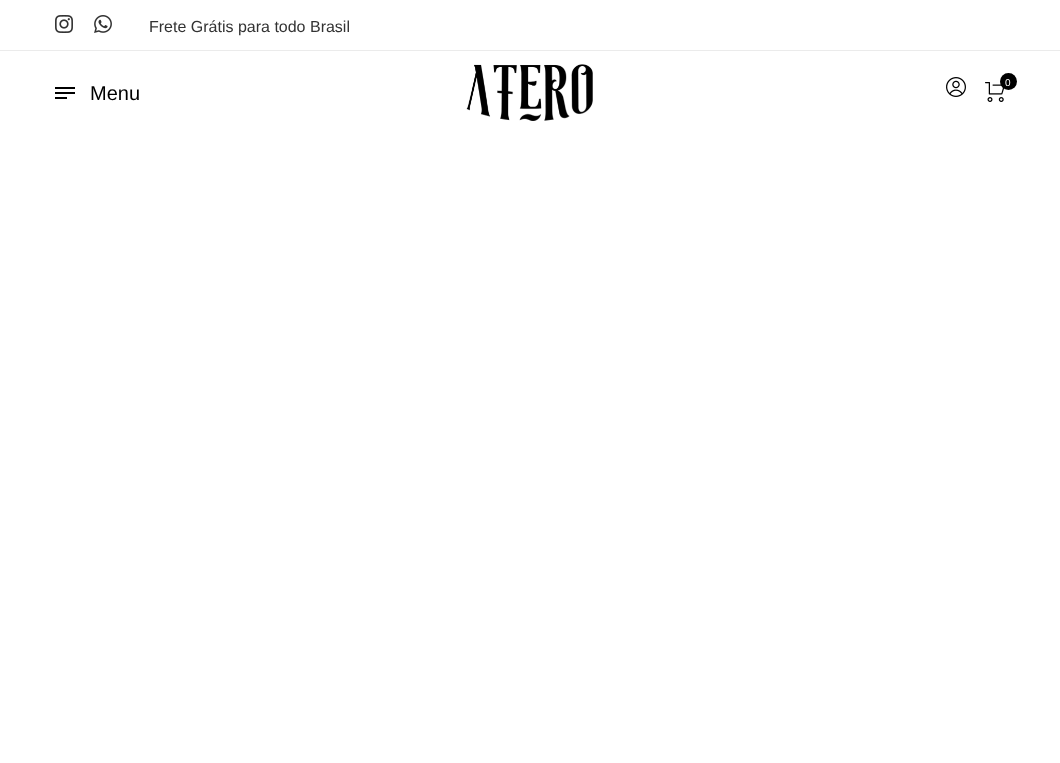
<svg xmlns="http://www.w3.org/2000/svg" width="1060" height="763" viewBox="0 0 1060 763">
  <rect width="100%" height="100%" fill="#fff"/>
  <path d="M0 50h1060v1H0z" fill="#ebebeb"/>
  <image x="55" y="15" width="18" height="18" href="img/1.png"/>
  <image x="94" y="15" width="18" height="18" href="img/2.png"/>
  <image x="466" y="64" width="127" height="57" href="img/3.png"/>
  <image x="946" y="77" width="20" height="20" href="img/4.png"/>
  <image x="985" y="82" width="20" height="20" href="img/5.png"/>
  <circle cx="1008.5" cy="81.5" r="8.5" fill="#000"/>
  <path d="M55 87h20v2H55z" fill="#000"/>
  <path d="M55 92h20v2H55z" fill="#000"/>
  <path d="M55 97h12v2H55z" fill="#000"/>
  <text x="149" y="32" font-family="Liberation Sans" font-size="16" fill="#333">Frete Grátis para todo Brasil</text>
  <text x="1005" y="86" font-family="Liberation Sans" font-size="10" fill="#fff">0</text>
  <text x="90" y="100" font-family="Liberation Sans" font-size="20" fill="#000">Menu</text>
</svg>
